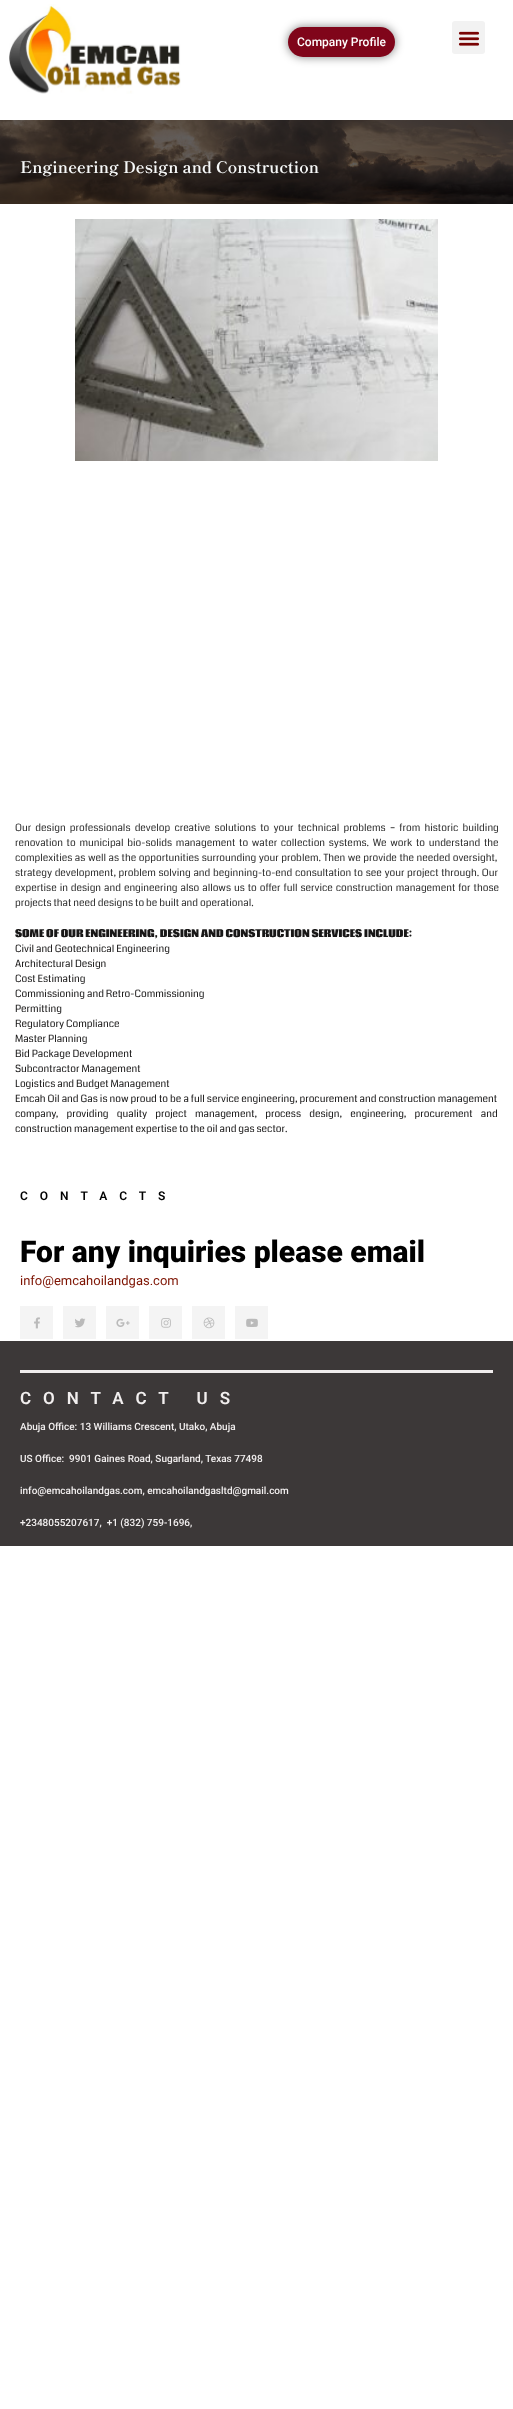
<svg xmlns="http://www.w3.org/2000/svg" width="513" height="2409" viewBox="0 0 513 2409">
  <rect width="100%" height="100%" fill="#fff"/>
  <image x="9" y="4" width="172" height="90" href="img/1.png"/>
  <rect x="288" y="27" width="107" height="30" rx="15" fill="#00000080" filter="blur(5px)"/>
  <rect x="288" y="27" width="107" height="30" rx="15" fill="#80051a"/>
  <rect x="452" y="21" width="33" height="33" rx="3" fill="#f2f2f2"/>
  <image x="458" y="31" width="22" height="15" href="img/2.png"/>
  <image x="0" y="120" width="513" height="84" href="img/3.png"/>
  <image x="75" y="219" width="363" height="242" href="img/4.png"/>
  <path d="M20 1306h33v33H20z" fill="#f4f4f4"/>
  <image x="34" y="1317" width="6" height="12" href="img/5.png"/>
  <path d="M63 1306h33v33H63z" fill="#f4f4f4"/>
  <image x="75" y="1318" width="11" height="10" href="img/6.png"/>
  <path d="M106 1306h33v33H106z" fill="#f4f4f4"/>
  <image x="116" y="1318" width="14" height="9" href="img/7.png"/>
  <path d="M149 1306h33v33H149z" fill="#f4f4f4"/>
  <image x="161" y="1318" width="10" height="10" href="img/8.png"/>
  <path d="M192 1306h33v33H192z" fill="#f4f4f4"/>
  <image x="203" y="1317" width="12" height="12" href="img/9.png"/>
  <path d="M235 1306h33v33H235z" fill="#f4f4f4"/>
  <image x="246" y="1318" width="12" height="9" href="img/10.png"/>
  <path d="M0 1341h513v205H0z" fill="#3c3838"/>
  <path d="M20 1370h473v3H20z" fill="#f0eded"/>
  <text x="297" y="46" font-family="Roboto" font-size="12" font-weight="500" fill="#fff">Company Profile</text>
  <text x="20" y="173" font-family="'Shippori Mincho B1'" font-size="16" font-weight="bold" fill="#f7f9f9">Engineering Design and Construction</text>
  <g font-family="Coda" font-size="10" fill="#313131">
    <text x="15" y="831" word-spacing="2.25">Our design professionals develop creative solutions to your technical problems – from historic building</text>
    <text x="15" y="846" word-spacing="1.75">renovation to municipal bio-solids management to water collection systems. We work to understand the</text>
    <text x="15" y="861" word-spacing="0.6">complexities as well as the opportunities surrounding your problem. Then we provide the needed oversight,</text>
    <text x="15" y="876" word-spacing="0.75">strategy development, problem solving and beginning-to-end consultation to see your project through. Our</text>
    <text x="15" y="891" word-spacing="1">expertise in design and engineering also allows us to offer full service construction management for those</text>
    <text x="15" y="906">projects that need designs to be built and operational.</text>
  </g>
  <text x="15" y="937" font-family="Coda" font-size="10" font-weight="800" fill="#181717">SOME OF OUR ENGINEERING, DESIGN AND CONSTRUCTION SERVICES INCLUDE:</text>
  <g font-family="Coda" font-size="10" fill="#181717">
    <text x="15" y="952">Civil and Geotechnical Engineering</text>
    <text x="15" y="967">Architectural Design</text>
    <text x="15" y="982">Cost Estimating</text>
    <text x="15" y="997">Commissioning and Retro-Commissioning</text>
    <text x="15" y="1012">Permitting</text>
    <text x="15" y="1027">Regulatory Compliance</text>
    <text x="15" y="1042">Master Planning</text>
    <text x="15" y="1057">Bid Package Development</text>
    <text x="15" y="1072">Subcontractor Management</text>
    <text x="15" y="1087">Logistics and Budget Management</text>
    <text x="15" y="1102" word-spacing="0.1">Emcah Oil and Gas is now proud to be a full service engineering, procurement and construction management</text>
    <text x="15" y="1117" word-spacing="6.25">company, providing quality project management, process design, engineering, procurement and</text>
    <text x="15" y="1132">construction management expertise to the oil and gas sector.</text>
  </g>
  <text x="20" y="1200" font-family="Roboto" font-size="12" font-weight="600" letter-spacing="12" fill="#000">CONTACTS</text>
  <text x="20" y="1262" font-family="Roboto" font-size="30" font-weight="900" fill="#000">For any inquiries please email</text>
  <text x="20" y="1285" font-family="Roboto" font-size="13" fill="#7d1302">info@emcahoilandgas.com</text>
  <text x="20" y="1404" font-family="Roboto" font-size="17" font-weight="600" letter-spacing="12" fill="#f2efef">CONTACT US</text>
  <g font-family="Roboto" font-size="10" font-weight="500" fill="#f2efef">
    <text x="20" y="1430">Abuja Office: 13 Williams Crescent, Utako, Abuja</text>
    <text x="20" y="1462" xml:space="preserve">US Office:  9901 Gaines Road, Sugarland, Texas 77498</text>
    <text x="20" y="1494">info@emcahoilandgas.com, emcahoilandgasltd@gmail.com</text>
    <text x="20" y="1526" xml:space="preserve">+2348055207617,  +1 (832) 759-1696,</text>
  </g>
</svg>
